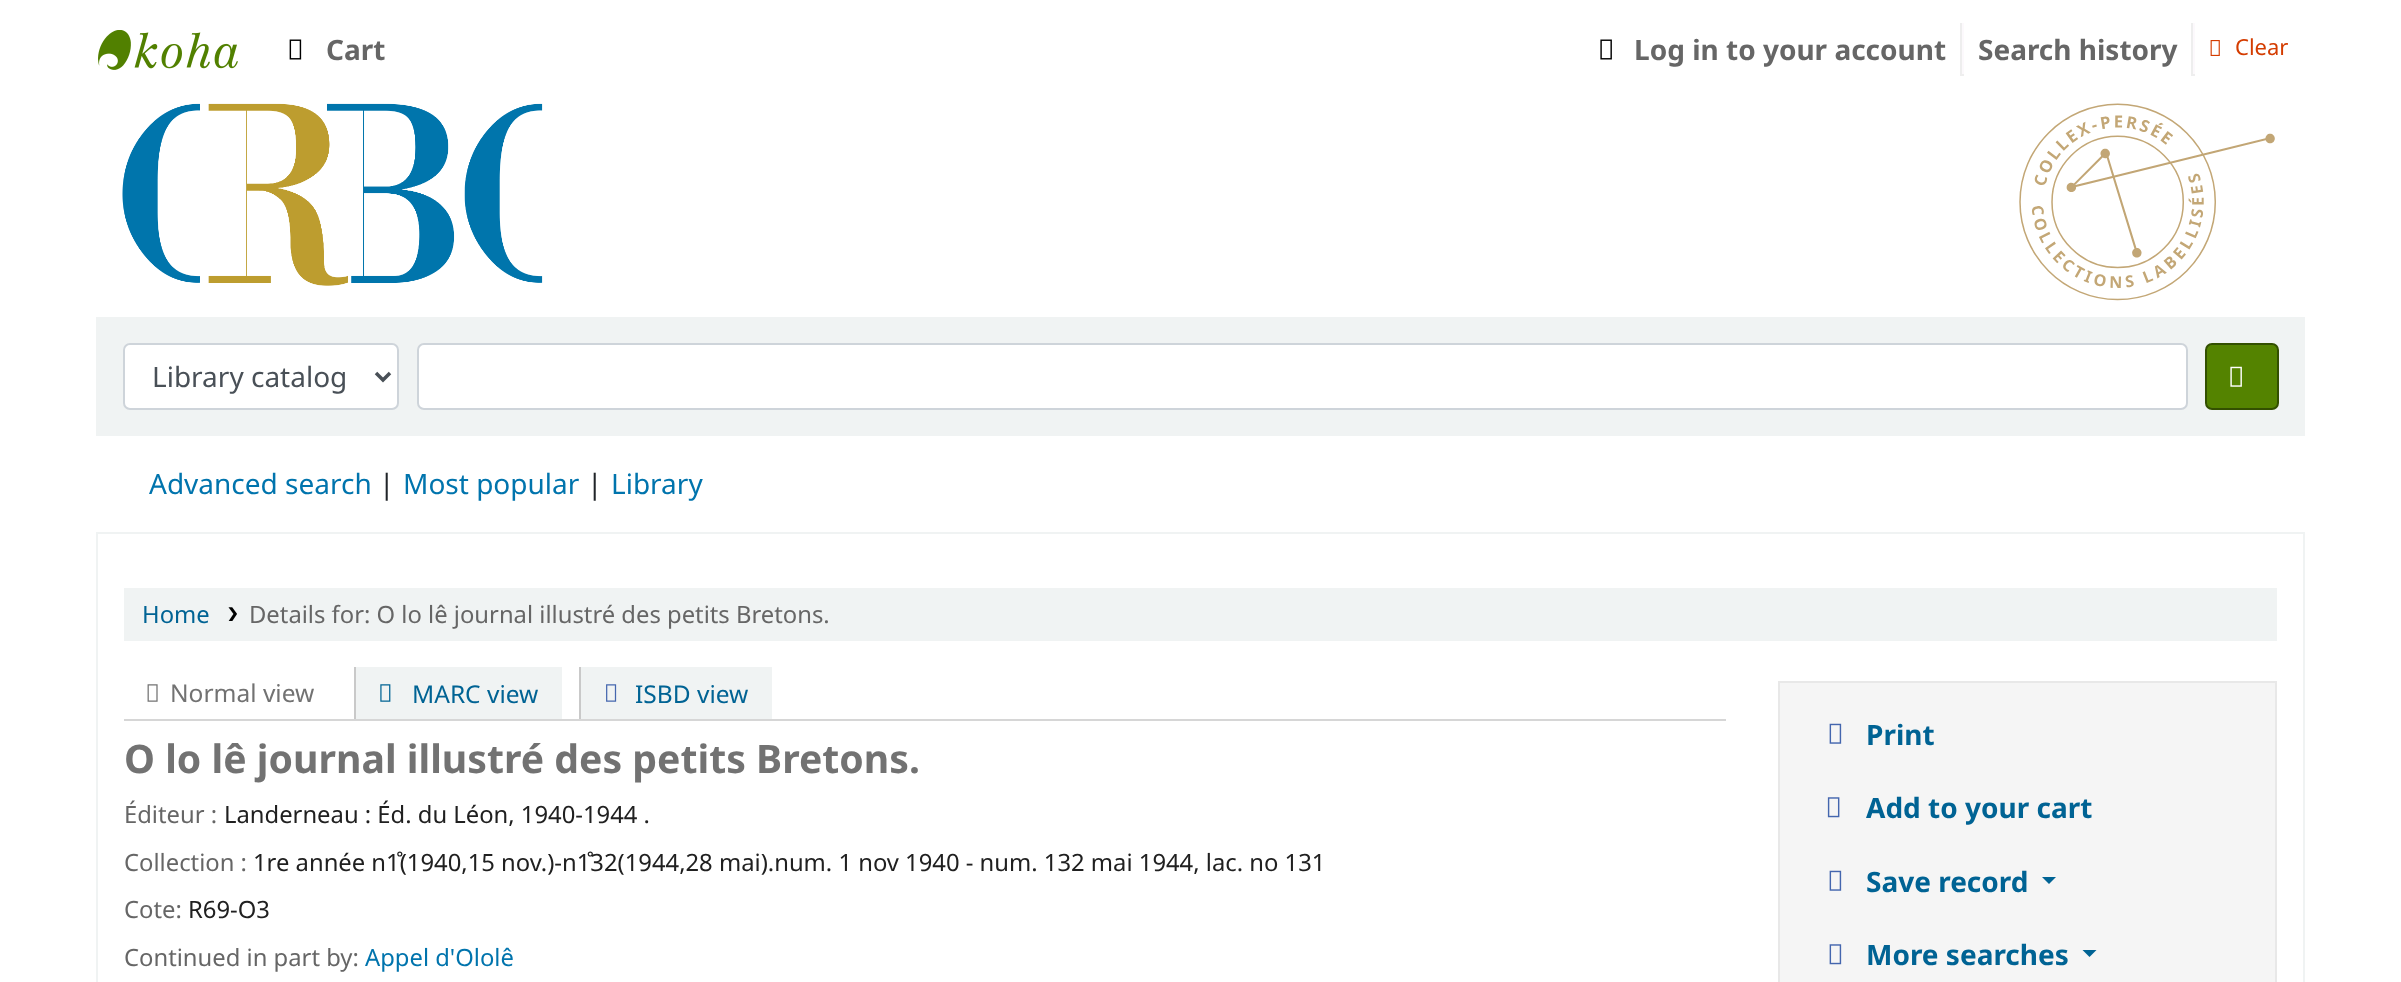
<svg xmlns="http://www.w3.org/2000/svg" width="2401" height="982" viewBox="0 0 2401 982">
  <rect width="100%" height="100%" fill="#fff"/>
  <image x="98" y="30" width="140" height="40" href="img/1.png"/>
  <image x="289" y="39" width="13" height="21" href="img/2.png"/>
  <image x="1600" y="39" width="12" height="21" href="img/3.png"/>
  <path d="M1962 23h2v52H1962z" fill="#fcf9fc"/>
  <path d="M1960 74h4v2H1960z" fill="#eee"/>
  <path d="M1960 23h2v52H1960z" fill="#eee"/>
  <path d="M2193 23h2v52H2193z" fill="#fcf9fc"/>
  <path d="M2191 74h4v2H2191z" fill="#eee"/>
  <path d="M2191 23h2v52H2191z" fill="#eee"/>
  <image x="2210" y="40" width="10" height="16" href="img/4.png"/>
  <image x="122" y="103" width="421" height="183" href="img/5.png"/>
  <image x="2019" y="103" width="256" height="198" href="img/6.png"/>
  <path d="M96 317h2209v119H96z" fill="#f0f3f3"/>
  <rect x="124" y="344" width="274" height="65" rx="6" fill="#fff" stroke="#ced4da" stroke-width="2"/>
  <path d="M376 373L383 380L390 373" fill="none" stroke="#495057" stroke-width="3.5"/>
  <rect x="418" y="344" width="1769" height="65" rx="6" fill="#fff" stroke="#ced4da" stroke-width="2"/>
  <rect x="2206" y="344" width="72" height="65" rx="6" fill="#548300" stroke="#335000" stroke-width="2"/>
  <image x="2230" y="366" width="12" height="21" href="img/7.png"/>
  <path d="M97 533h2207v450H97z" fill="none" stroke="#f0f3f3" stroke-width="2"/>
  <path d="M124 588h2153v53H124z" fill="#f0f3f3"/>
  <image x="228" y="607" width="9" height="14" href="img/8.png"/>
  <path d="M124 719h1602v2H124z" fill="#d6d6d6"/>
  <image x="147" y="684" width="11" height="18" href="img/9.png"/>
  <path d="M356 667h206v52H356z" fill="#f0f3f3"/>
  <path d="M354 667h2v52H354z" fill="#c9c9c9"/>
  <image x="380" y="684" width="11" height="18" href="img/10.png"/>
  <path d="M581 667h191v52H581z" fill="#f0f3f3"/>
  <path d="M579 667h2v52H579z" fill="#c9c9c9"/>
  <image x="606" y="684" width="11" height="18" href="img/11.png"/>
  <path d="M1779 682h497v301H1779z" fill="#f5f5f5" stroke="#e8e8e8" stroke-width="2"/>
  <image x="1829" y="723" width="13" height="21" href="img/12.png"/>
  <image x="1827" y="797" width="13" height="21" href="img/13.png"/>
  <image x="1829" y="870" width="13" height="21" href="img/12.png"/>
  <path d="M2042 877H2056L2049 884Z" fill="#006394"/>
  <image x="1829" y="944" width="13" height="21" href="img/14.png"/>
  <path d="M2082.5 950H2096.5L2089.5 957Z" fill="#006394"/>
  <g font-family="Noto Sans" font-size="28" font-weight="bold" fill="#666">
    <text x="326" y="60">Cart</text>
    <text x="1634" y="60">Log in to your account</text>
    <text x="1978" y="60">Search history</text>
  </g>
  <text x="2235" y="55" font-family="Noto Sans" font-size="22" fill="#d43c00">Clear</text>
  <text x="152" y="387" font-family="Noto Sans" font-size="28" fill="#495057">Library catalog</text>
  <text x="149" y="494" font-family="Noto Sans" font-size="28" fill="#0074ad">Advanced search</text>
  <text x="379" y="494" font-family="Noto Sans" font-size="28" fill="#212529">|</text>
  <text x="403" y="494" font-family="Noto Sans" font-size="28" fill="#0074ad">Most popular</text>
  <text x="587" y="494" font-family="Noto Sans" font-size="28" fill="#212529">|</text>
  <text x="611" y="494" font-family="Noto Sans" font-size="28" fill="#0074ad">Library</text>
  <text x="142" y="623" font-family="Noto Sans" font-size="23.8" fill="#006394">Home</text>
  <text x="249" y="623" font-family="Noto Sans" font-size="23.8" fill="#666">Details for: O lo lê journal illustré des petits Bretons.</text>
  <text x="170" y="702" font-family="Noto Sans" font-size="24.5" fill="#727272">Normal view</text>
  <g font-family="Noto Sans" font-size="24.5" fill="#006394">
    <text x="412" y="703">MARC view</text>
    <text x="635" y="703">ISBD view</text>
  </g>
  <text x="124" y="773" font-family="Noto Sans" font-size="39.2" font-weight="bold" fill="#727272">O lo lê journal illustré des petits Bretons.</text>
  <text x="124" y="823" font-family="Noto Sans" font-size="23.8" fill="#666">Éditeur :</text>
  <text x="224" y="823" font-family="Noto Sans" font-size="23.8" fill="#202020">Landerneau : Éd. du Léon, 1940-1944 .</text>
  <text x="124" y="871" font-family="Noto Sans" font-size="23.8" fill="#666">Collection :</text>
  <text x="253" y="871" font-family="Noto Sans" font-size="23.8" fill="#202020">1re année n1̊(1940,15 nov.)-n1̊32(1944,28 mai).num. 1 nov 1940 - num. 132 mai 1944, lac. no 131</text>
  <text x="124" y="918" font-family="Noto Sans" font-size="23.8" fill="#666">Cote:</text>
  <text x="188" y="918" font-family="Noto Sans" font-size="23.8" fill="#202020">R69-O3</text>
  <text x="124" y="966" font-family="Noto Sans" font-size="23.8" fill="#666">Continued in part by:</text>
  <text x="365" y="966" font-family="Noto Sans" font-size="23.8" fill="#0074ad">Appel d'Ololê</text>
  <g font-family="Noto Sans" font-size="28" font-weight="bold" fill="#006394">
    <text x="1866" y="745">Print</text>
    <text x="1866" y="818">Add to your cart</text>
    <text x="1866" y="892">Save record</text>
    <text x="1866" y="965">More searches</text>
  </g>
</svg>
